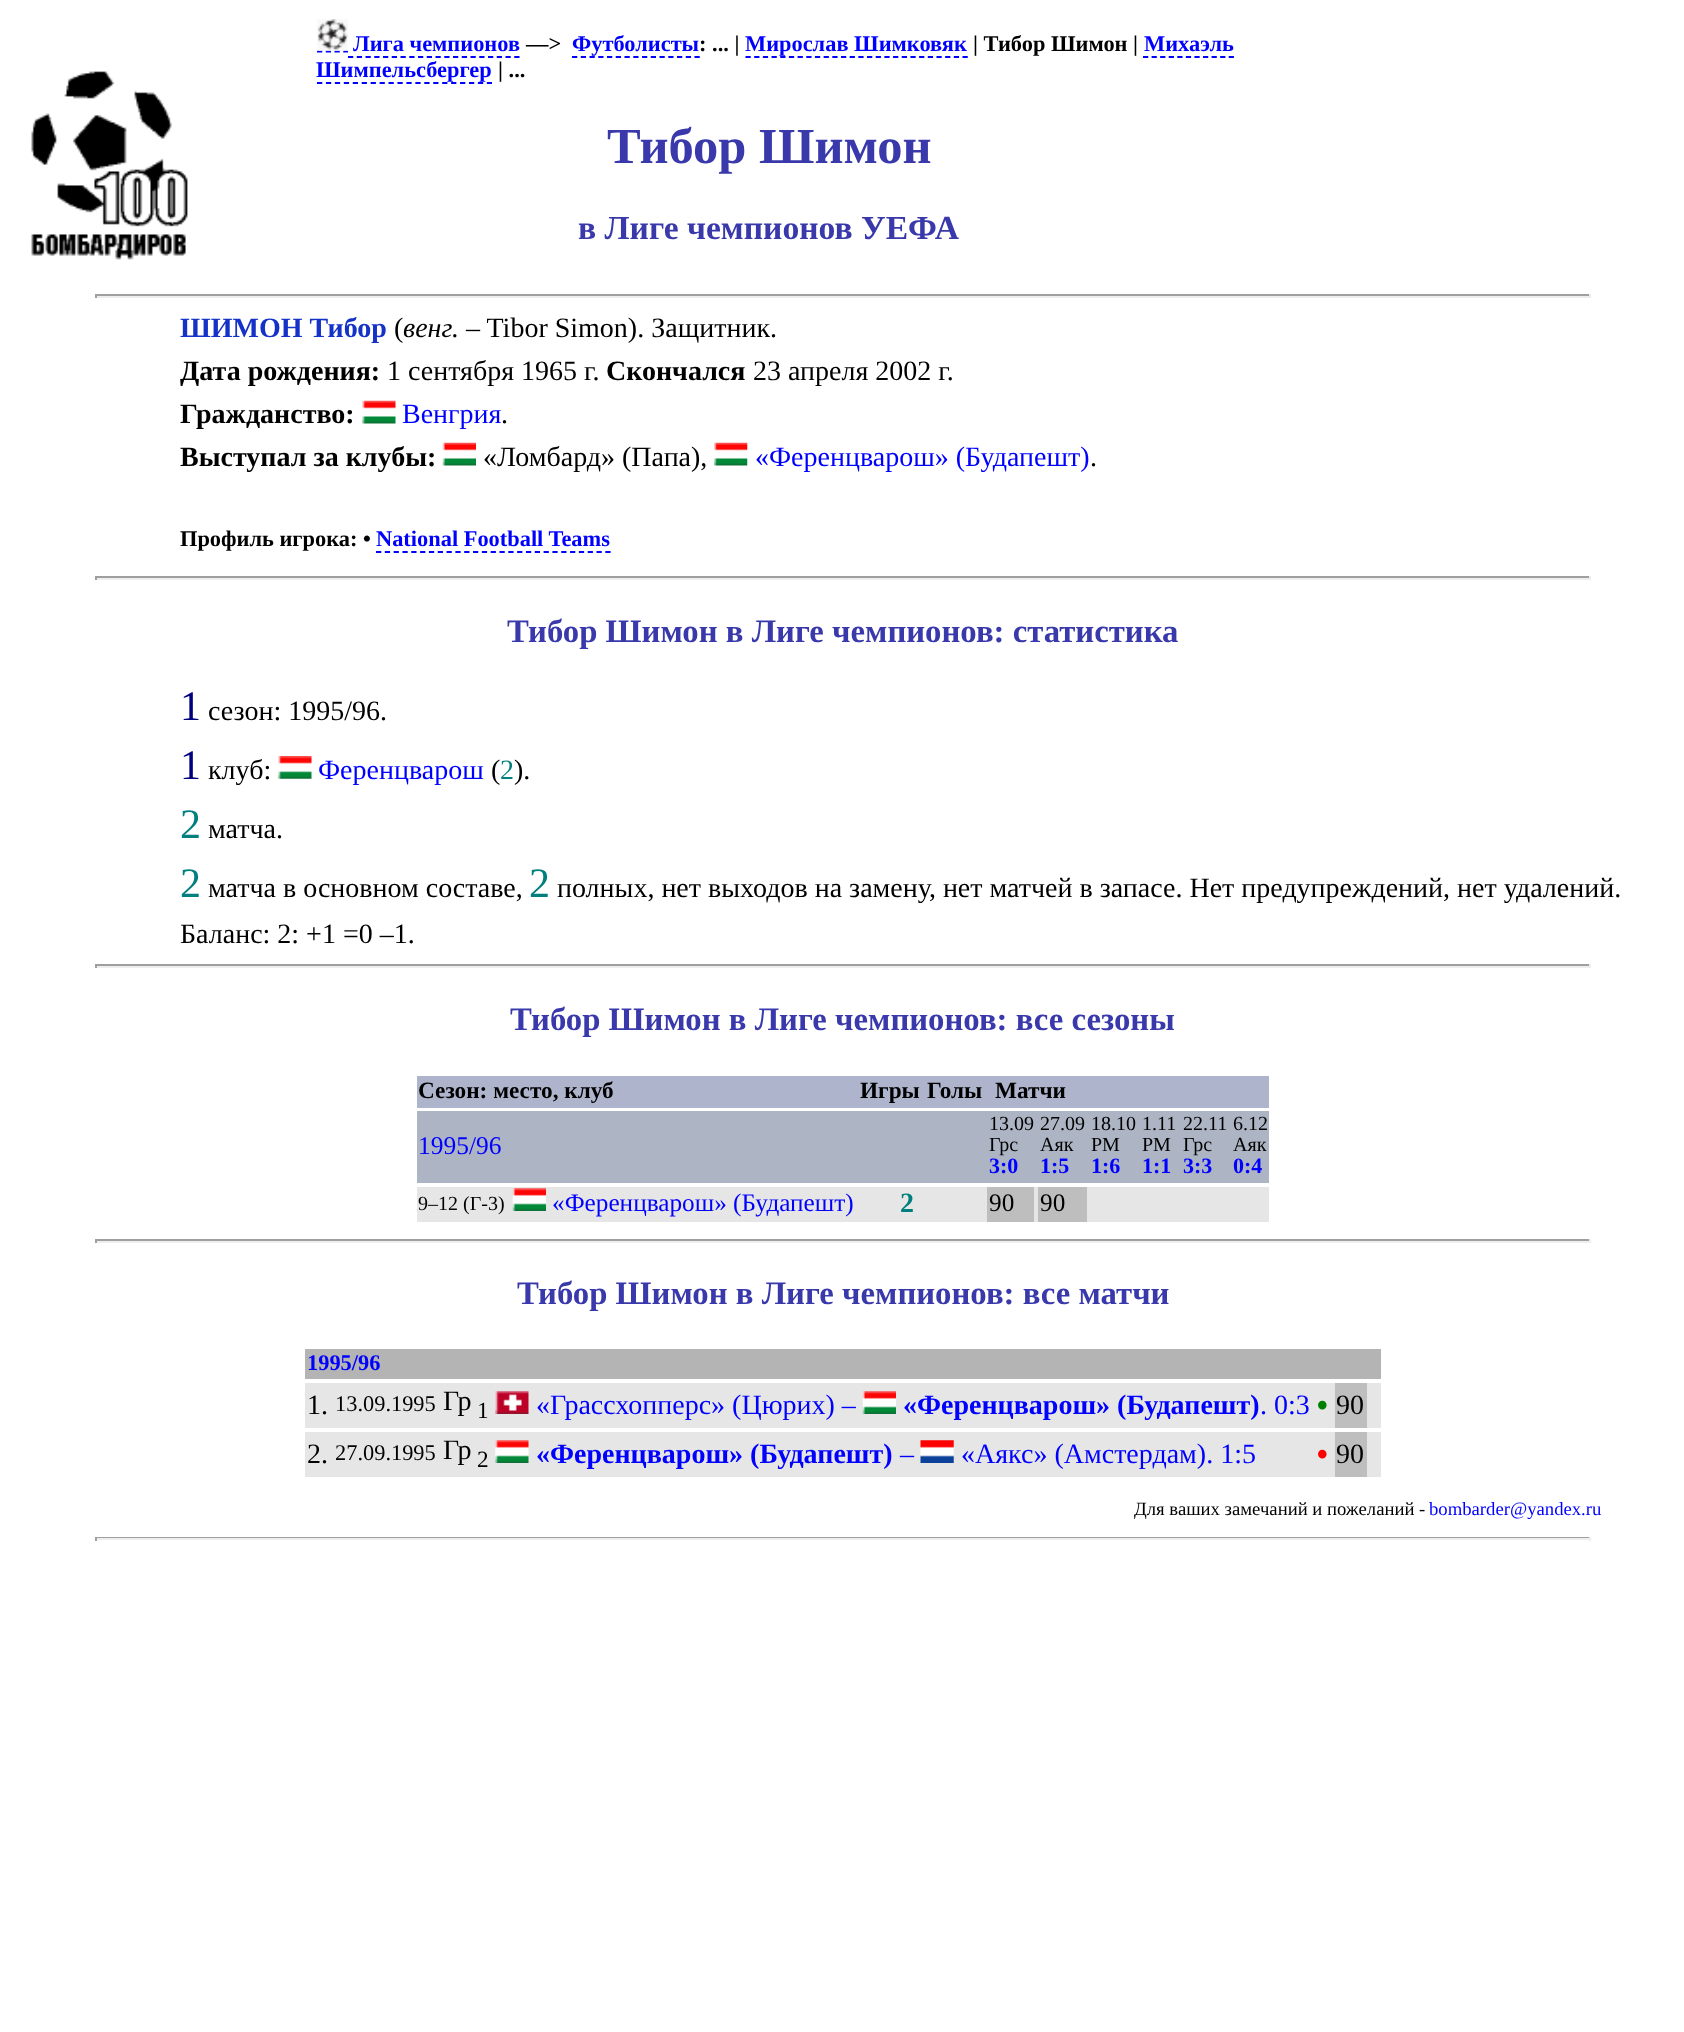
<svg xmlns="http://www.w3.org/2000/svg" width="1684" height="2032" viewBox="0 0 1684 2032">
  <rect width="100%" height="100%" fill="#fff"/>
  <image x="31" y="71" width="157" height="189" href="img/1.png"/>
  <path d="M317 51.5H348" fill="none" stroke="#00f" stroke-width="1.8" stroke-dasharray="5.25 3.5"/>
  <image x="317" y="19" width="32" height="32" href="img/2.png"/>
  <path d="M348 57H520" fill="none" stroke="#00f" stroke-width="1.8" stroke-dasharray="5.25 3.5"/>
  <path d="M572 57H700" fill="none" stroke="#00f" stroke-width="1.8" stroke-dasharray="5.25 3.5"/>
  <path d="M745.5 57H968" fill="none" stroke="#00f" stroke-width="1.8" stroke-dasharray="5.25 3.43"/>
  <path d="M1143 57H1234" fill="none" stroke="#00f" stroke-width="1.8" stroke-dasharray="5.25 3.32"/>
  <path d="M317 83H492" fill="none" stroke="#00f" stroke-width="1.8" stroke-dasharray="5.25 3.69"/>
  <path d="M95 294h1496v2H95z" fill="#9f9f9f"/>
  <path d="M1589 294h2v4H1589z" fill="#eee"/>
  <path d="M95 296h1496v2H95z" fill="#eee"/>
  <path d="M95 294h2v4H95z" fill="#9f9f9f"/>
  <image x="362" y="400" width="34" height="24" href="img/3.png"/>
  <image x="442" y="442" width="34" height="24" href="img/4.png"/>
  <image x="714" y="442" width="34" height="24" href="img/5.png"/>
  <path d="M376 552H611" fill="none" stroke="#00f" stroke-width="1.8" stroke-dasharray="5.25 3.57"/>
  <path d="M95 576h1496v2H95z" fill="#9f9f9f"/>
  <path d="M1589 576h2v4H1589z" fill="#eee"/>
  <path d="M95 578h1496v2H95z" fill="#eee"/>
  <path d="M95 576h2v4H95z" fill="#9f9f9f"/>
  <image x="278" y="756" width="34" height="23" href="img/6.png"/>
  <path d="M95 964h1496v2H95z" fill="#9f9f9f"/>
  <path d="M1589 964h2v4H1589z" fill="#eee"/>
  <path d="M95 966h1496v2H95z" fill="#eee"/>
  <path d="M95 964h2v4H95z" fill="#9f9f9f"/>
  <path d="M417 1076h852v32H417z" fill="#adb4cb"/>
  <path d="M417 1111h852v72H417z" fill="#adb4c3"/>
  <path d="M417 1187h852v35H417z" fill="#e6e6e6"/>
  <image x="512" y="1188" width="34" height="23" href="img/7.png"/>
  <path d="M987 1187h47v35H987z" fill="#bebebe"/>
  <path d="M1038 1187h49v35H1038z" fill="#bebebe"/>
  <path d="M95 1239h1496v2H95z" fill="#9f9f9f"/>
  <path d="M1589 1239h2v4H1589z" fill="#eee"/>
  <path d="M95 1241h1496v2H95z" fill="#eee"/>
  <path d="M95 1239h2v4H95z" fill="#9f9f9f"/>
  <path d="M305 1349h1076v30H305z" fill="#b4b4b4"/>
  <path d="M305 1383h1076v45H305z" fill="#e6e6e6"/>
  <image x="495" y="1391" width="34" height="23" href="img/8.png"/>
  <image x="862" y="1391" width="34" height="23" href="img/7.png"/>
  <path d="M1335 1383h32v45H1335z" fill="#bebebe"/>
  <path d="M305 1432h1076v45H305z" fill="#e6e6e6"/>
  <image x="495" y="1440" width="34" height="23" href="img/9.png"/>
  <image x="920" y="1440" width="34" height="23" href="img/10.png"/>
  <path d="M1335 1432h32v45H1335z" fill="#bebebe"/>
  <path d="M95 1537h1496v1H95z" fill="#9f9f9f"/>
  <path d="M1589 1537h2v4H1589z" fill="#eee"/>
  <path d="M95 1538h1496v2H95z" fill="#eee"/>
  <path d="M95 1537h2v4H95z" fill="#9f9f9f"/>
  <text x="353" y="51" font-family="Liberation Serif" font-size="22.4" font-weight="bold" fill="#00f">Лига чемпионов</text>
  <text x="526" y="51" font-family="Liberation Serif" font-size="22.4" font-weight="bold" fill="#000">—&gt;</text>
  <text x="572" y="51" font-family="Liberation Serif" font-size="22.4" font-weight="bold" fill="#00f">Футболисты</text>
  <text x="699" y="51" font-family="Liberation Serif" font-size="22.4" font-weight="bold" fill="#000">: ... |</text>
  <text x="745" y="51" font-family="Liberation Serif" font-size="22.4" font-weight="bold" fill="#00f">Мирослав Шимковяк</text>
  <text x="973" y="51" font-family="Liberation Serif" font-size="22.4" font-weight="bold" fill="#000">| Тибор Шимон |</text>
  <g font-family="Liberation Serif" font-size="22.4" font-weight="bold" fill="#00f">
    <text x="1144" y="51">Михаэль</text>
    <text x="316" y="77">Шимпельсбергер</text>
  </g>
  <text x="498" y="77" font-family="Liberation Serif" font-size="22.4" font-weight="bold" fill="#000">| ...</text>
  <text x="607" y="163" font-family="Liberation Serif" font-size="50.5" font-weight="bold" fill="#3939ac">Тибор Шимон</text>
  <text x="578" y="239" font-family="Liberation Serif" font-size="33.6" font-weight="bold" fill="#3939ac">в Лиге чемпионов УЕФА</text>
  <text x="180" y="337" font-family="Liberation Serif" font-size="28" font-weight="bold" fill="#1432c8">ШИМОН Тибор</text>
  <text x="394" y="337" font-family="Liberation Serif" font-size="28" fill="#000">(</text>
  <text x="403" y="337" font-family="Liberation Serif" font-size="28" font-style="italic" fill="#000">венг.</text>
  <text x="466" y="337" font-family="Liberation Serif" font-size="28" fill="#000">– Tibor Simon). Защитник.</text>
  <text x="180" y="380" font-family="Liberation Serif" font-size="28" font-weight="bold" fill="#000">Дата рождения:</text>
  <text x="387" y="380" font-family="Liberation Serif" font-size="28" fill="#000">1 сентября 1965 г.</text>
  <text x="606" y="380" font-family="Liberation Serif" font-size="28" font-weight="bold" fill="#000">Скончался</text>
  <text x="753" y="380" font-family="Liberation Serif" font-size="28" fill="#000">23 апреля 2002 г.</text>
  <text x="180" y="423" font-family="Liberation Serif" font-size="28" font-weight="bold" fill="#000">Гражданство:</text>
  <text x="402" y="423" font-family="Liberation Serif" font-size="28" fill="#00f">Венгрия</text>
  <text x="501" y="423" font-family="Liberation Serif" font-size="28" fill="#000">.</text>
  <text x="180" y="466" font-family="Liberation Serif" font-size="28" font-weight="bold" fill="#000">Выступал за клубы:</text>
  <text x="483" y="466" font-family="Liberation Serif" font-size="28" fill="#000">«Ломбард» (Папа),</text>
  <text x="755" y="466" font-family="Liberation Serif" font-size="28" fill="#00f">«Ференцварош» (Будапешт)</text>
  <text x="1090" y="466" font-family="Liberation Serif" font-size="28" fill="#000">.</text>
  <text x="180" y="546" font-family="Liberation Serif" font-size="22.4" font-weight="bold" fill="#000">Профиль игрока: •</text>
  <text x="376" y="546" font-family="Liberation Serif" font-size="22.4" font-weight="bold" fill="#00f">National Football Teams</text>
  <text x="507" y="642" font-family="Liberation Serif" font-size="32.75" font-weight="bold" fill="#3939ac">Тибор Шимон в Лиге чемпионов: статистика</text>
  <text x="180" y="720" font-family="Liberation Serif" font-size="42" fill="#00007f">1</text>
  <text x="208" y="720" font-family="Liberation Serif" font-size="28" fill="#000">сезон: 1995/96.</text>
  <text x="180" y="779" font-family="Liberation Serif" font-size="42" fill="#00007f">1</text>
  <text x="208" y="779" font-family="Liberation Serif" font-size="28" fill="#000">клуб:</text>
  <text x="318" y="779" font-family="Liberation Serif" font-size="28" fill="#00f">Ференцварош</text>
  <text x="491" y="779" font-family="Liberation Serif" font-size="28" fill="#000">(</text>
  <text x="500" y="779" font-family="Liberation Serif" font-size="28" fill="#007f7f">2</text>
  <text x="514" y="779" font-family="Liberation Serif" font-size="28" fill="#000">).</text>
  <text x="180" y="838" font-family="Liberation Serif" font-size="42" fill="#007f7f">2</text>
  <text x="208" y="838" font-family="Liberation Serif" font-size="28" fill="#000">матча.</text>
  <text x="180" y="897" font-family="Liberation Serif" font-size="42" fill="#007f7f">2</text>
  <text x="208" y="897" font-family="Liberation Serif" font-size="28" fill="#000">матча в основном составе,</text>
  <text x="529" y="897" font-family="Liberation Serif" font-size="42" fill="#007f7f">2</text>
  <g font-family="Liberation Serif" font-size="28" fill="#000">
    <text x="557" y="897">полных, нет выходов на замену, нет матчей в запасе. Нет предупреждений, нет удалений.</text>
    <text x="180" y="943">Баланс: 2: +1 =0 –1.</text>
  </g>
  <text x="510" y="1030" font-family="Liberation Serif" font-size="32.75" font-weight="bold" fill="#3939ac">Тибор Шимон в Лиге чемпионов: все сезоны</text>
  <g font-family="Liberation Serif" font-size="23.25" font-weight="bold" fill="#000">
    <text x="418" y="1098">Сезон: место, клуб</text>
    <text x="860" y="1098">Игры</text>
    <text x="927" y="1098">Голы</text>
    <text x="995" y="1098">Матчи</text>
  </g>
  <text x="418" y="1154" font-family="Liberation Serif" font-size="25.5" fill="#00f">1995/96</text>
  <g font-family="Liberation Serif" font-size="20" fill="#000">
    <text x="989" y="1130">13.09</text>
    <text x="989" y="1151">Грс</text>
  </g>
  <text x="989" y="1173" font-family="Liberation Serif" font-size="22" font-weight="bold" fill="#00f">3:0</text>
  <g font-family="Liberation Serif" font-size="20" fill="#000">
    <text x="1040" y="1130">27.09</text>
    <text x="1040" y="1151">Аяк</text>
  </g>
  <text x="1040" y="1173" font-family="Liberation Serif" font-size="22" font-weight="bold" fill="#00f">1:5</text>
  <g font-family="Liberation Serif" font-size="20" fill="#000">
    <text x="1091" y="1130">18.10</text>
    <text x="1091" y="1151">РМ</text>
  </g>
  <text x="1091" y="1173" font-family="Liberation Serif" font-size="22" font-weight="bold" fill="#00f">1:6</text>
  <g font-family="Liberation Serif" font-size="20" fill="#000">
    <text x="1142" y="1130">1.11</text>
    <text x="1142" y="1151">РМ</text>
  </g>
  <text x="1142" y="1173" font-family="Liberation Serif" font-size="22" font-weight="bold" fill="#00f">1:1</text>
  <g font-family="Liberation Serif" font-size="20" fill="#000">
    <text x="1183" y="1130">22.11</text>
    <text x="1183" y="1151">Грс</text>
  </g>
  <text x="1183" y="1173" font-family="Liberation Serif" font-size="22" font-weight="bold" fill="#00f">3:3</text>
  <g font-family="Liberation Serif" font-size="20" fill="#000">
    <text x="1233" y="1130">6.12</text>
    <text x="1233" y="1151">Аяк</text>
  </g>
  <text x="1233" y="1173" font-family="Liberation Serif" font-size="22" font-weight="bold" fill="#00f">0:4</text>
  <text x="418" y="1210" font-family="Liberation Serif" font-size="20" fill="#000">9–12 (Г-3)</text>
  <text x="552" y="1211" font-family="Liberation Serif" font-size="25.25" fill="#00f">«Ференцварош» (Будапешт)</text>
  <text x="900" y="1212" font-family="Liberation Serif" font-size="28" font-weight="bold" fill="#007f7f">2</text>
  <g font-family="Liberation Serif" font-size="25.25" fill="#000">
    <text x="989" y="1211">90</text>
    <text x="1040" y="1211">90</text>
  </g>
  <text x="517" y="1304" font-family="Liberation Serif" font-size="32.75" font-weight="bold" fill="#3939ac">Тибор Шимон в Лиге чемпионов: все матчи</text>
  <text x="307" y="1370" font-family="Liberation Serif" font-size="22.4" font-weight="bold" fill="#00f">1995/96</text>
  <text x="307" y="1414" font-family="Liberation Serif" font-size="28" fill="#000">1.</text>
  <text x="335" y="1411" font-family="Liberation Serif" font-size="22.4" fill="#000">13.09.1995</text>
  <text x="443" y="1410" font-family="Liberation Serif" font-size="28" fill="#000">Гр</text>
  <text x="477" y="1418" font-family="Liberation Serif" font-size="23.25" fill="#000">1</text>
  <text x="536" y="1414" font-family="Liberation Serif" font-size="28" fill="#00f">«Грассхопперс» (Цюрих) –</text>
  <text x="903" y="1414" font-family="Liberation Serif" font-size="28" font-weight="bold" fill="#00f">«Ференцварош» (Будапешт)</text>
  <text x="1260" y="1414" font-family="Liberation Serif" font-size="28" fill="#00f">. 0:3</text>
  <text x="1316" y="1417" font-family="Liberation Serif" font-size="36" fill="#008000">•</text>
  <g font-family="Liberation Serif" font-size="28" fill="#000">
    <text x="1336" y="1414">90</text>
    <text x="307" y="1463">2.</text>
  </g>
  <text x="335" y="1460" font-family="Liberation Serif" font-size="22.4" fill="#000">27.09.1995</text>
  <text x="443" y="1459" font-family="Liberation Serif" font-size="28" fill="#000">Гр</text>
  <text x="477" y="1467" font-family="Liberation Serif" font-size="23.25" fill="#000">2</text>
  <text x="536" y="1463" font-family="Liberation Serif" font-size="28" font-weight="bold" fill="#00f">«Ференцварош» (Будапешт)</text>
  <g font-family="Liberation Serif" font-size="28" fill="#00f">
    <text x="900" y="1463">–</text>
    <text x="961" y="1463">«Аякс» (Амстердам). 1:5</text>
  </g>
  <text x="1316" y="1466" font-family="Liberation Serif" font-size="36" fill="#f00">•</text>
  <text x="1336" y="1463" font-family="Liberation Serif" font-size="28" fill="#000">90</text>
  <text x="1134" y="1515" font-family="Liberation Serif" font-size="18.7" fill="#000">Для ваших замечаний и пожеланий -</text>
  <text x="1429" y="1515" font-family="Liberation Serif" font-size="18.7" fill="#00f">bombarder@yandex.ru</text>
</svg>
